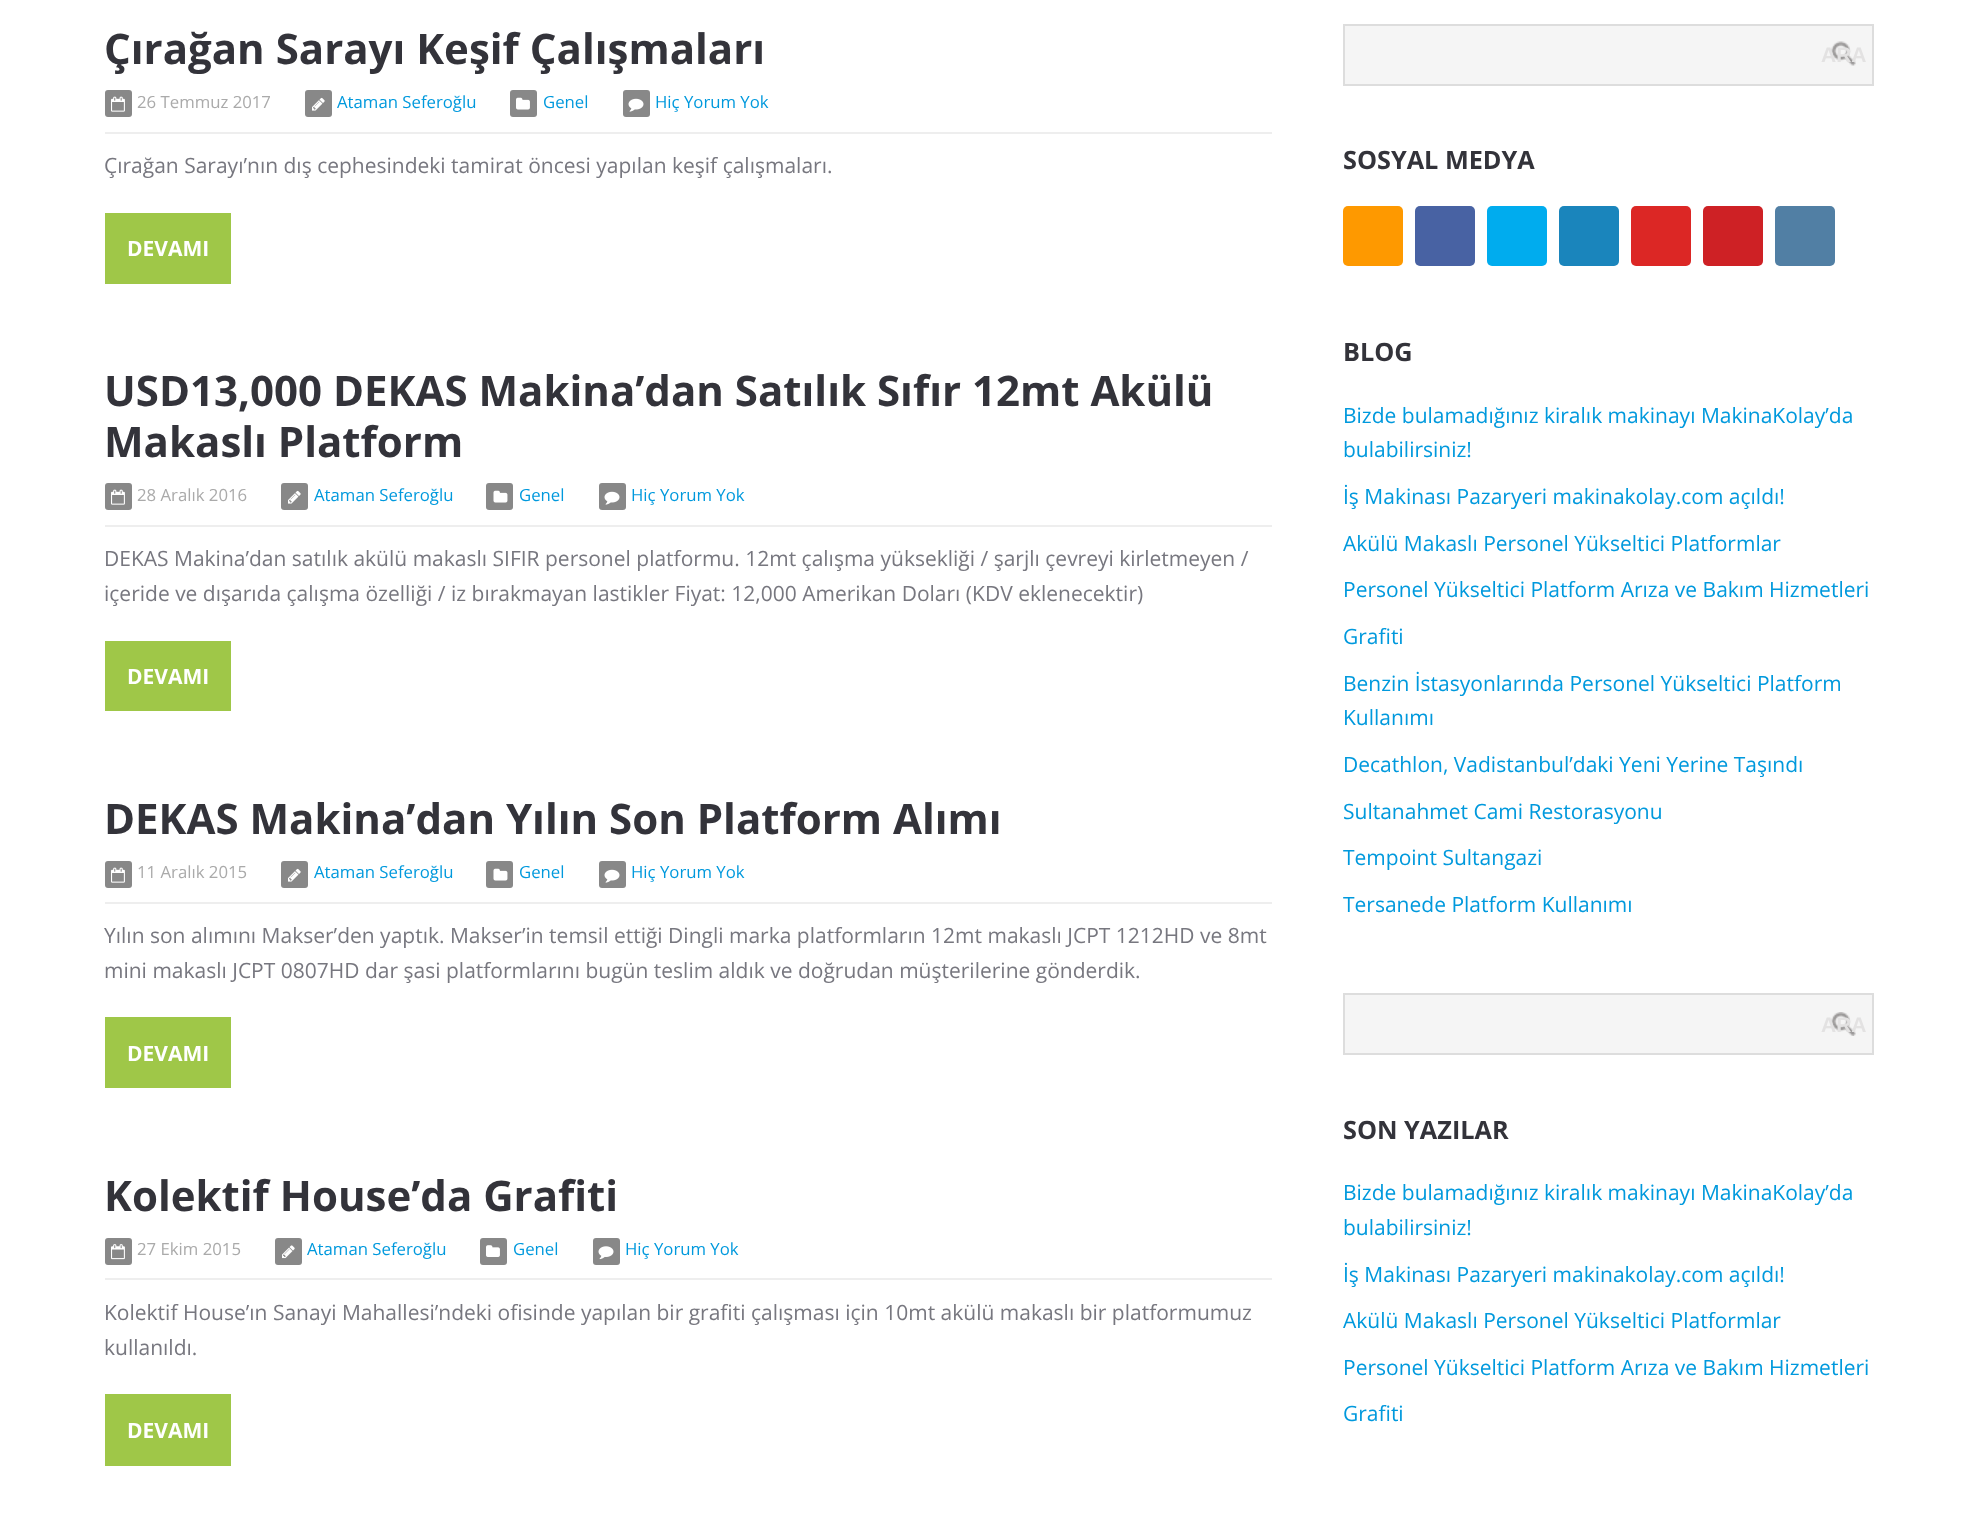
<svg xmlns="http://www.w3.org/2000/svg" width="1978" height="1519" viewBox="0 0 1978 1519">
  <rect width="100%" height="100%" fill="#fff"/>
  <path d="M105 132h1167v2H105z" fill="#eee"/>
  <rect x="105" y="90" width="27" height="27" rx="3" fill="#888"/>
  <image x="111" y="96" width="14" height="16" href="img/1.png"/>
  <rect x="305" y="90" width="27" height="27" rx="3" fill="#888"/>
  <image x="312" y="97" width="13" height="14" href="img/2.png"/>
  <rect x="510" y="90" width="27" height="27" rx="3" fill="#888"/>
  <image x="516" y="97" width="14" height="13" href="img/3.png"/>
  <rect x="623" y="90" width="27" height="27" rx="3" fill="#888"/>
  <image x="628" y="98" width="16" height="14" href="img/4.png"/>
  <path d="M105 213h126v71H105z" fill="#9fc748"/>
  <path d="M105 525h1167v2H105z" fill="#eee"/>
  <rect x="105" y="483" width="27" height="27" rx="3" fill="#888"/>
  <image x="111" y="489" width="14" height="16" href="img/1.png"/>
  <rect x="281" y="483" width="27" height="27" rx="3" fill="#888"/>
  <image x="288" y="490" width="13" height="14" href="img/2.png"/>
  <rect x="486" y="483" width="27" height="27" rx="3" fill="#888"/>
  <image x="493" y="490" width="15" height="13" href="img/5.png"/>
  <rect x="599" y="483" width="27" height="27" rx="3" fill="#888"/>
  <image x="604" y="491" width="16" height="14" href="img/4.png"/>
  <path d="M105 641h126v70H105z" fill="#9fc748"/>
  <path d="M105 902h1167v2H105z" fill="#eee"/>
  <rect x="105" y="861" width="27" height="27" rx="3" fill="#888"/>
  <image x="111" y="867" width="14" height="16" href="img/1.png"/>
  <rect x="281" y="861" width="27" height="27" rx="3" fill="#888"/>
  <image x="288" y="868" width="13" height="14" href="img/2.png"/>
  <rect x="486" y="861" width="27" height="27" rx="3" fill="#888"/>
  <image x="493" y="868" width="15" height="13" href="img/5.png"/>
  <rect x="599" y="861" width="27" height="27" rx="3" fill="#888"/>
  <image x="604" y="869" width="16" height="14" href="img/4.png"/>
  <path d="M105 1017h126v71H105z" fill="#9fc748"/>
  <path d="M105 1278h1167v2H105z" fill="#eee"/>
  <rect x="105" y="1238" width="27" height="27" rx="3" fill="#888"/>
  <image x="111" y="1244" width="14" height="16" href="img/6.png"/>
  <rect x="275" y="1238" width="27" height="27" rx="3" fill="#888"/>
  <image x="282" y="1245" width="13" height="14" href="img/7.png"/>
  <rect x="480" y="1238" width="27" height="27" rx="3" fill="#888"/>
  <image x="486" y="1245" width="14" height="12" href="img/8.png"/>
  <rect x="593" y="1238" width="27" height="27" rx="3" fill="#888"/>
  <image x="598" y="1246" width="16" height="14" href="img/9.png"/>
  <path d="M105 1394h126v72H105z" fill="#9fc748"/>
  <path d="M1344 25h529v60H1344z" fill="#f5f5f5" stroke="#ddd" stroke-width="2"/>
  <image x="1831" y="41" width="25" height="25" href="img/10.png"/>
  <rect x="1343" y="206" width="60" height="60" rx="5" fill="#fe9900"/>
  <rect x="1415" y="206" width="60" height="60" rx="5" fill="#4862a3"/>
  <rect x="1487" y="206" width="60" height="60" rx="5" fill="#00acee"/>
  <rect x="1559" y="206" width="60" height="60" rx="5" fill="#1a85bc"/>
  <rect x="1631" y="206" width="60" height="60" rx="5" fill="#dc2725"/>
  <rect x="1703" y="206" width="60" height="60" rx="5" fill="#ce2125"/>
  <rect x="1775" y="206" width="60" height="60" rx="5" fill="#517fa4"/>
  <path d="M1344 994h529v60H1344z" fill="#f5f5f5" stroke="#ddd" stroke-width="2"/>
  <image x="1831" y="1012" width="25" height="24" href="img/11.png"/>
  <text x="104" y="64" font-family="Open Sans" font-size="42" font-weight="bold" fill="#33333a">Çırağan Sarayı Keşif Çalışmaları</text>
  <text x="137" y="108" font-family="Open Sans" font-size="16.75" fill="#aaa">26 Temmuz 2017</text>
  <g font-family="Open Sans" font-size="16.75" fill="#09d">
    <text x="337" y="108">Ataman Seferoğlu</text>
    <text x="543" y="108">Genel</text>
    <text x="655" y="108">Hiç Yorum Yok</text>
  </g>
  <text x="104" y="173" font-family="Open Sans" font-size="21" fill="#77777f">Çırağan Sarayı’nın dış cephesindeki tamirat öncesi yapılan keşif çalışmaları.</text>
  <text x="127" y="256" font-family="Open Sans" font-size="21" font-weight="bold" fill="#fff">DEVAMI</text>
  <g font-family="Open Sans" font-size="42" font-weight="bold" fill="#33333a">
    <text x="104" y="406">USD13,000 DEKAS Makina’dan Satılık Sıfır 12mt Akülü</text>
    <text x="104" y="457">Makaslı Platform</text>
  </g>
  <text x="137" y="501" font-family="Open Sans" font-size="16.75" fill="#aaa">28 Aralık 2016</text>
  <g font-family="Open Sans" font-size="16.75" fill="#09d">
    <text x="314" y="501">Ataman Seferoğlu</text>
    <text x="519" y="501">Genel</text>
    <text x="631" y="501">Hiç Yorum Yok</text>
  </g>
  <g font-family="Open Sans" font-size="21" fill="#77777f">
    <text x="104" y="566">DEKAS Makina’dan satılık akülü makaslı SIFIR personel platformu. 12mt çalışma yüksekliği / şarjlı çevreyi kirletmeyen /</text>
    <text x="104" y="601">içeride ve dışarıda çalışma özelliği / iz bırakmayan lastikler Fiyat: 12,000 Amerikan Doları (KDV eklenecektir)</text>
  </g>
  <text x="127" y="684" font-family="Open Sans" font-size="21" font-weight="bold" fill="#fff">DEVAMI</text>
  <text x="104" y="834" font-family="Open Sans" font-size="42" font-weight="bold" fill="#33333a">DEKAS Makina’dan Yılın Son Platform Alımı</text>
  <text x="137" y="878" font-family="Open Sans" font-size="16.75" fill="#aaa">11 Aralık 2015</text>
  <g font-family="Open Sans" font-size="16.75" fill="#09d">
    <text x="314" y="878">Ataman Seferoğlu</text>
    <text x="519" y="878">Genel</text>
    <text x="631" y="878">Hiç Yorum Yok</text>
  </g>
  <g font-family="Open Sans" font-size="21" fill="#77777f">
    <text x="104" y="943">Yılın son alımını Makser’den yaptık. Makser’in temsil ettiği Dingli marka platformların 12mt makaslı JCPT 1212HD ve 8mt</text>
    <text x="104" y="978">mini makaslı JCPT 0807HD dar şasi platformlarını bugün teslim aldık ve doğrudan müşterilerine gönderdik.</text>
  </g>
  <text x="127" y="1061" font-family="Open Sans" font-size="21" font-weight="bold" fill="#fff">DEVAMI</text>
  <text x="104" y="1211" font-family="Open Sans" font-size="42" font-weight="bold" fill="#33333a">Kolektif House’da Grafiti</text>
  <text x="137" y="1255" font-family="Open Sans" font-size="16.75" fill="#aaa">27 Ekim 2015</text>
  <g font-family="Open Sans" font-size="16.75" fill="#09d">
    <text x="307" y="1255">Ataman Seferoğlu</text>
    <text x="513" y="1255">Genel</text>
    <text x="625" y="1255">Hiç Yorum Yok</text>
  </g>
  <g font-family="Open Sans" font-size="21" fill="#77777f">
    <text x="104" y="1320">Kolektif House’ın Sanayi Mahallesi’ndeki ofisinde yapılan bir grafiti çalışması için 10mt akülü makaslı bir platformumuz</text>
    <text x="104" y="1355">kullanıldı.</text>
  </g>
  <text x="127" y="1438" font-family="Open Sans" font-size="21" font-weight="bold" fill="#fff">DEVAMI</text>
  <text x="1821" y="62" font-family="Liberation Sans" font-size="21" font-weight="bold" fill="#e3e2e2">ARA</text>
  <g font-family="Open Sans" font-size="25.25" font-weight="bold" fill="#33333a">
    <text x="1343" y="169">SOSYAL MEDYA</text>
    <text x="1343" y="361">BLOG</text>
  </g>
  <g font-family="Open Sans" font-size="21" fill="#09d">
    <text x="1343" y="423">Bizde bulamadığınız kiralık makinayı MakinaKolay’da</text>
    <text x="1343" y="457">bulabilirsiniz!</text>
    <text x="1343" y="504">İş Makinası Pazaryeri makinakolay.com açıldı!</text>
    <text x="1343" y="551">Akülü Makaslı Personel Yükseltici Platformlar</text>
    <text x="1343" y="597">Personel Yükseltici Platform Arıza ve Bakım Hizmetleri</text>
    <text x="1343" y="644">Grafiti</text>
    <text x="1343" y="691">Benzin İstasyonlarında Personel Yükseltici Platform</text>
    <text x="1343" y="725">Kullanımı</text>
    <text x="1343" y="772">Decathlon, Vadistanbul’daki Yeni Yerine Taşındı</text>
    <text x="1343" y="819">Sultanahmet Cami Restorasyonu</text>
    <text x="1343" y="865">Tempoint Sultangazi</text>
    <text x="1343" y="912">Tersanede Platform Kullanımı</text>
  </g>
  <text x="1821" y="1032" font-family="Liberation Sans" font-size="21" font-weight="bold" fill="#e3e2e2">ARA</text>
  <text x="1343" y="1139" font-family="Open Sans" font-size="25.25" font-weight="bold" fill="#33333a">SON YAZILAR</text>
  <g font-family="Open Sans" font-size="21" fill="#09d">
    <text x="1343" y="1200">Bizde bulamadığınız kiralık makinayı MakinaKolay’da</text>
    <text x="1343" y="1235">bulabilirsiniz!</text>
    <text x="1343" y="1282">İş Makinası Pazaryeri makinakolay.com açıldı!</text>
    <text x="1343" y="1328">Akülü Makaslı Personel Yükseltici Platformlar</text>
    <text x="1343" y="1375">Personel Yükseltici Platform Arıza ve Bakım Hizmetleri</text>
    <text x="1343" y="1421">Grafiti</text>
  </g>
</svg>
